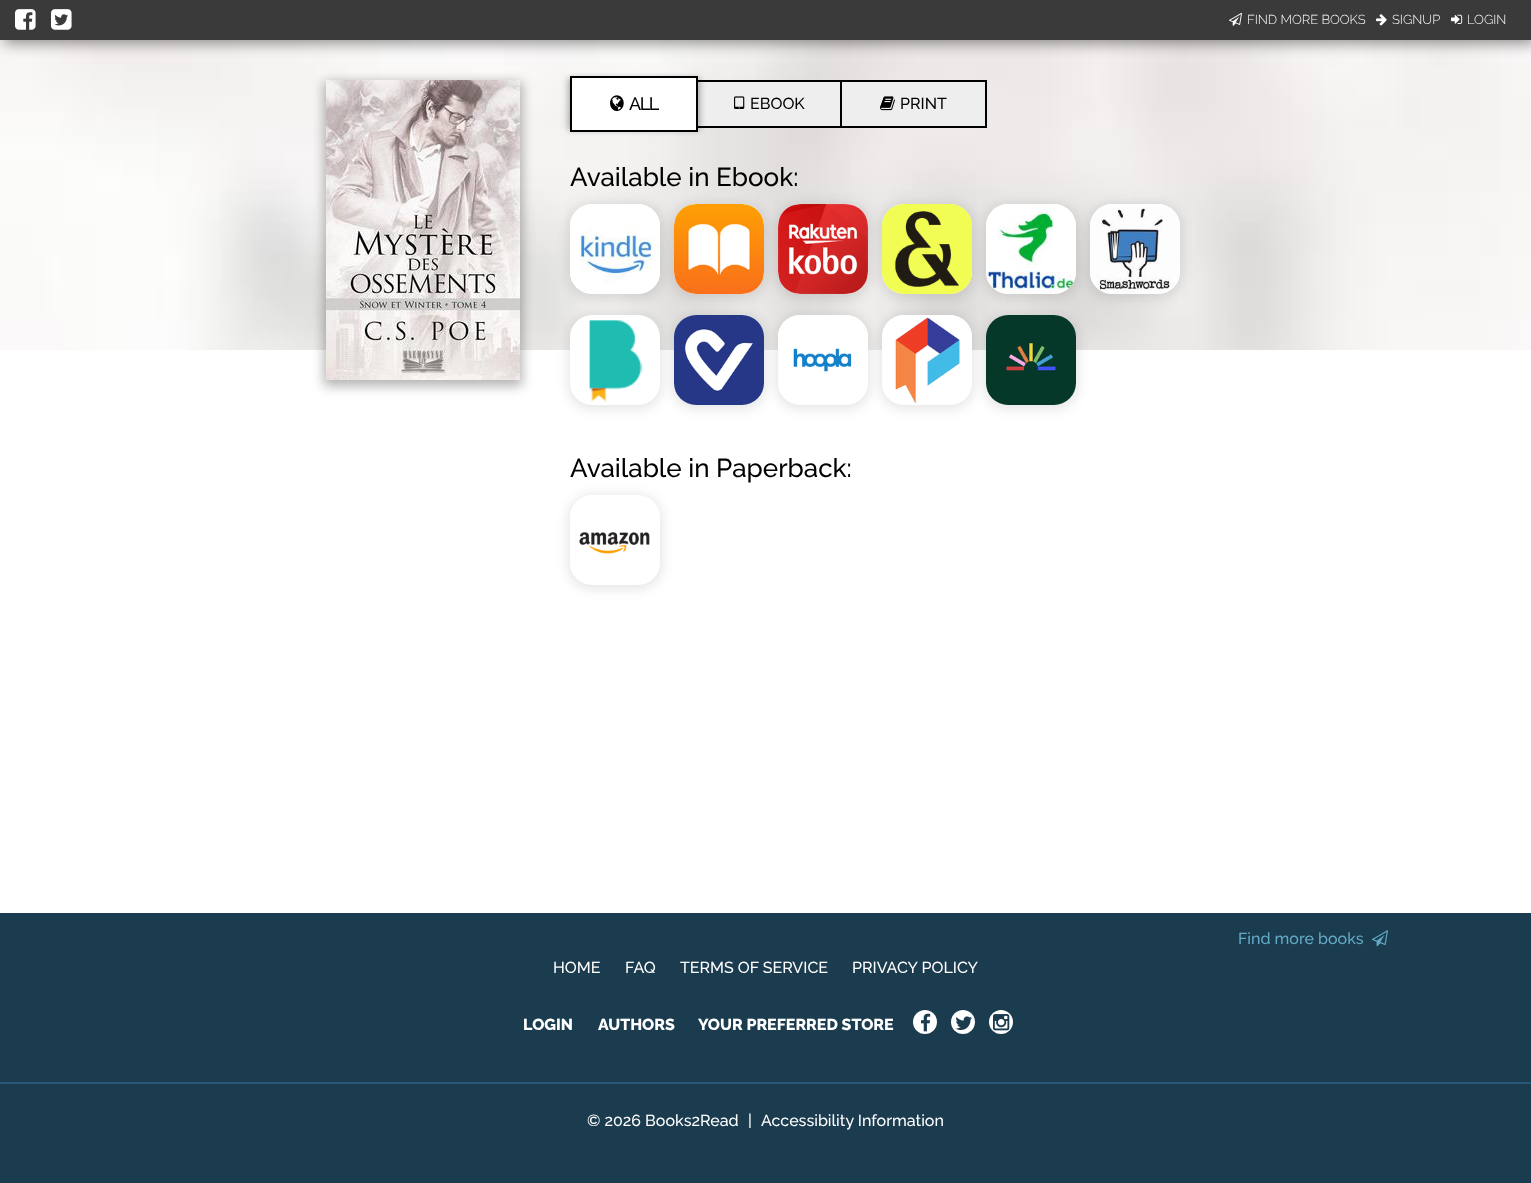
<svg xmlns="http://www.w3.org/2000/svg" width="1531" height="1183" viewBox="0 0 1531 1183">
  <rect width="100%" height="100%" fill="#fff"/>
  <image x="0" y="40" width="1531" height="310" href="img/1.png"/>
  <path d="M4 4h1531v40H4z" fill="#00000066" filter="blur(7px)"/>
  <path d="M0 0h1531v40H0z" fill="#3a3a3a"/>
  <image x="15" y="9" width="21" height="21" href="img/2.png"/>
  <image x="51" y="9" width="21" height="21" href="img/3.png"/>
  <image x="1229" y="12" width="13" height="14" href="img/4.png"/>
  <image x="1376" y="14" width="11" height="12" href="img/5.png"/>
  <image x="1451" y="14" width="12" height="10" href="img/6.png"/>
  <path d="M324 82h198v304H324z" fill="#0000004d" filter="blur(6px)"/>
  <image x="326" y="80" width="194" height="300" href="img/7.png"/>
  <path d="M698 82h142v44H698z" fill="#eee"/>
  <path d="M695 81h148v46H695z" fill="none" stroke="#000" stroke-width="2"/>
  <path d="M568 78h132v52H568z" fill="#0000004d" filter="blur(3px)"/>
  <path d="M571 77h126v54H571z" fill="#fff" stroke="#000" stroke-width="2"/>
  <image x="610" y="95" width="14" height="17" href="img/8.png"/>
  <image x="734" y="96" width="11" height="13" href="img/9.png"/>
  <path d="M841 81h145v46H841z" fill="#eee" stroke="#000" stroke-width="2"/>
  <image x="880" y="96" width="15" height="15" href="img/10.png"/>
  <rect x="568" y="204" width="94" height="94" rx="24" fill="#0000001a" filter="blur(6px)"/>
  <rect x="570" y="204" width="90" height="90" rx="22" fill="#fff"/>
  <image x="570" y="204" width="90" height="90" href="img/11.png"/>
  <rect x="672" y="204" width="94" height="94" rx="24" fill="#0000001a" filter="blur(6px)"/>
  <rect x="674" y="204" width="90" height="90" rx="22" fill="#fff"/>
  <image x="674" y="204" width="90" height="90" href="img/12.png"/>
  <rect x="776" y="204" width="94" height="94" rx="24" fill="#0000001a" filter="blur(6px)"/>
  <rect x="778" y="204" width="90" height="90" rx="22" fill="#fff"/>
  <image x="778" y="204" width="90" height="90" href="img/13.png"/>
  <rect x="880" y="204" width="94" height="94" rx="24" fill="#0000001a" filter="blur(6px)"/>
  <rect x="882" y="204" width="90" height="90" rx="22" fill="#fff"/>
  <image x="882" y="204" width="90" height="90" href="img/14.png"/>
  <rect x="984" y="204" width="94" height="94" rx="24" fill="#0000001a" filter="blur(6px)"/>
  <rect x="986" y="204" width="90" height="90" rx="22" fill="#fff"/>
  <image x="986" y="204" width="90" height="90" href="img/15.png"/>
  <rect x="1088" y="204" width="94" height="94" rx="24" fill="#0000001a" filter="blur(6px)"/>
  <rect x="1090" y="204" width="90" height="90" rx="22" fill="#fff"/>
  <image x="1090" y="204" width="90" height="90" href="img/16.png"/>
  <rect x="568" y="315" width="94" height="94" rx="24" fill="#0000001a" filter="blur(6px)"/>
  <rect x="570" y="315" width="90" height="90" rx="22" fill="#fff"/>
  <rect x="672" y="315" width="94" height="94" rx="24" fill="#0000001a" filter="blur(6px)"/>
  <rect x="674" y="315" width="90" height="90" rx="22" fill="#fff"/>
  <image x="674" y="315" width="90" height="90" href="img/17.png"/>
  <rect x="776" y="315" width="94" height="94" rx="24" fill="#0000001a" filter="blur(6px)"/>
  <rect x="778" y="315" width="90" height="90" rx="22" fill="#fff"/>
  <image x="778" y="315" width="90" height="57" href="img/18.png"/>
  <rect x="880" y="315" width="94" height="94" rx="24" fill="#0000001a" filter="blur(6px)"/>
  <rect x="882" y="315" width="90" height="90" rx="22" fill="#fff"/>
  <image x="882" y="315" width="90" height="89" href="img/19.png"/>
  <rect x="984" y="315" width="94" height="94" rx="24" fill="#0000001a" filter="blur(6px)"/>
  <rect x="986" y="315" width="90" height="90" rx="22" fill="#fff"/>
  <image x="589" y="320" width="54" height="82" href="img/20.png"/>
  <image x="986" y="315" width="90" height="90" href="img/21.png"/>
  <rect x="568" y="495" width="94" height="94" rx="24" fill="#0000001a" filter="blur(6px)"/>
  <rect x="570" y="495" width="90" height="90" rx="22" fill="#fff"/>
  <image x="579" y="532" width="71" height="22" href="img/22.png"/>
  <path d="M0 913h1531v270H0z" fill="#1b3b4f"/>
  <image x="1372" y="930" width="16" height="17" href="img/23.png"/>
  <circle cx="925" cy="1022" r="12" fill="#fff"/>
  <image x="921" y="1013" width="10" height="19" href="img/24.png"/>
  <circle cx="963" cy="1022" r="12" fill="#fff"/>
  <image x="955" y="1016" width="17" height="14" href="img/25.png"/>
  <circle cx="1001" cy="1022" r="12" fill="#fff"/>
  <image x="993" y="1014" width="17" height="17" href="img/26.png"/>
  <path d="M0 1082h1531v2H0z" fill="#285775"/>
  <g font-family="Raleway" font-size="13" font-weight="300" fill="#fff">
    <text x="1247" y="24">FIND MORE BOOKS</text>
    <text x="1392" y="24">SIGNUP</text>
    <text x="1467" y="24">LOGIN</text>
  </g>
  <text x="629" y="110" font-family="Raleway" font-size="18" font-weight="500" letter-spacing="-1.5" fill="#000">ALL</text>
  <g font-family="Raleway" font-size="16" font-weight="500" fill="#000">
    <text x="750" y="109">EBOOK</text>
    <text x="900" y="109">PRINT</text>
  </g>
  <g font-family="Raleway" font-size="26" font-weight="500" fill="#000">
    <text x="570" y="186">Available in Ebook:</text>
    <text x="570" y="477">Available in Paperback:</text>
  </g>
  <text x="1238" y="944" font-family="Raleway" font-size="16" font-weight="500" fill="#63aac5">Find more books</text>
  <g font-family="Raleway" font-size="16" font-weight="500" fill="#fff">
    <text x="553" y="973">HOME</text>
    <text x="625" y="973">FAQ</text>
    <text x="680" y="973">TERMS OF SERVICE</text>
    <text x="852" y="973">PRIVACY POLICY</text>
  </g>
  <g font-family="Raleway" font-size="16" font-weight="800" fill="#fff">
    <text x="523" y="1030">LOGIN</text>
    <text x="598" y="1030">AUTHORS</text>
    <text x="698" y="1030">YOUR PREFERRED STORE</text>
  </g>
  <g font-family="Raleway" font-size="16" font-weight="500" fill="#fff">
    <text x="587" y="1126">© 2026 Books2Read</text>
    <text x="748" y="1126">|</text>
    <text x="761" y="1126">Accessibility Information</text>
  </g>
</svg>
